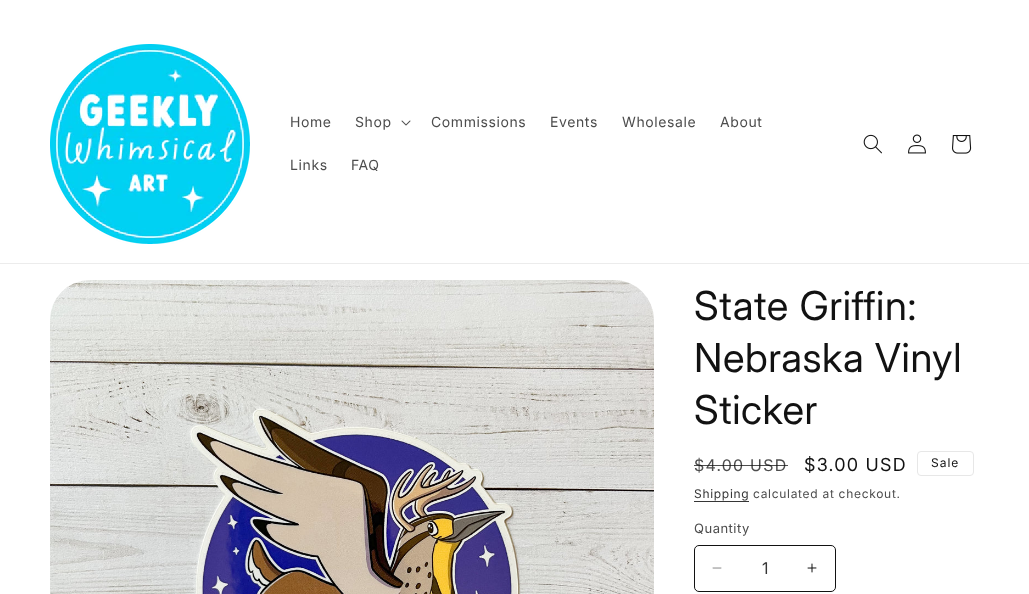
<svg xmlns="http://www.w3.org/2000/svg" width="1029" height="594" viewBox="0 0 1029 594">
  <rect width="100%" height="100%" fill="#fff"/>
  <path d="M0 263h1029v1H0z" fill="#ececec"/>
  <image x="50" y="44" width="200" height="200" href="img/1.png"/>
  <image x="401" y="120" width="10" height="6" href="img/2.png"/>
  <image x="863" y="134" width="19" height="20" href="img/3.png"/>
  <image x="908" y="134" width="18" height="20" href="img/4.png"/>
  <image x="952" y="135" width="20" height="19" href="img/5.png"/>
  <image x="50" y="280" width="604" height="314" href="img/6.png"/>
  <rect x="917.5" y="451.5" width="56" height="24" rx="3.5" fill="none" stroke="#e7e7e7"/>
  <path d="M694 501h55v1H694z" fill="#363636"/>
  <image x="712" y="567" width="10" height="2" href="img/7.png"/>
  <image x="807" y="563" width="10" height="10" href="img/8.png"/>
  <rect x="694.5" y="545.5" width="141" height="46" rx="4.5" fill="none" stroke="#121212"/>
  <g font-family="'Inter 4'" font-size="14" letter-spacing="0.6" fill="#4d4d4d">
    <text x="290" y="127">Home</text>
    <text x="355" y="127">Shop</text>
    <text x="431" y="127">Commissions</text>
    <text x="550" y="127">Events</text>
    <text x="622" y="127">Wholesale</text>
    <text x="720" y="127">About</text>
    <text x="290" y="170">Links</text>
    <text x="351" y="170">FAQ</text>
  </g>
  <g font-family="Inter" font-size="40" letter-spacing="0.6" fill="#121212">
    <text x="694" y="320">State Griffin:</text>
    <text x="694" y="372">Nebraska Vinyl</text>
    <text x="694" y="424">Sticker</text>
  </g>
  <text x="694" y="471" font-family="'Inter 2'" font-size="16" letter-spacing="1.25" fill="#4d4d4d">$4.00 USD</text>
  <path d="M694 465h94v1H694z" fill="#121212bf"/>
  <text x="804" y="471" font-family="'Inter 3'" font-size="18" letter-spacing="1.25" fill="#121212">$3.00 USD</text>
  <text x="931" y="467" font-family="'Inter 4'" font-size="12" letter-spacing="1" fill="#121212">Sale</text>
  <text x="694" y="498" font-family="'Inter 4'" font-size="12" letter-spacing="0.7" fill="#363636">Shipping</text>
  <text x="753" y="498" font-family="'Inter 4'" font-size="12" letter-spacing="0.7" fill="#4d4d4d">calculated at checkout.</text>
  <text x="694" y="533" font-family="'Inter 4'" font-size="13" letter-spacing="0.5" fill="#4d4d4d">Quantity</text>
  <text x="762" y="574" font-family="'Inter 2'" font-size="16" fill="#363636">1</text>
</svg>
